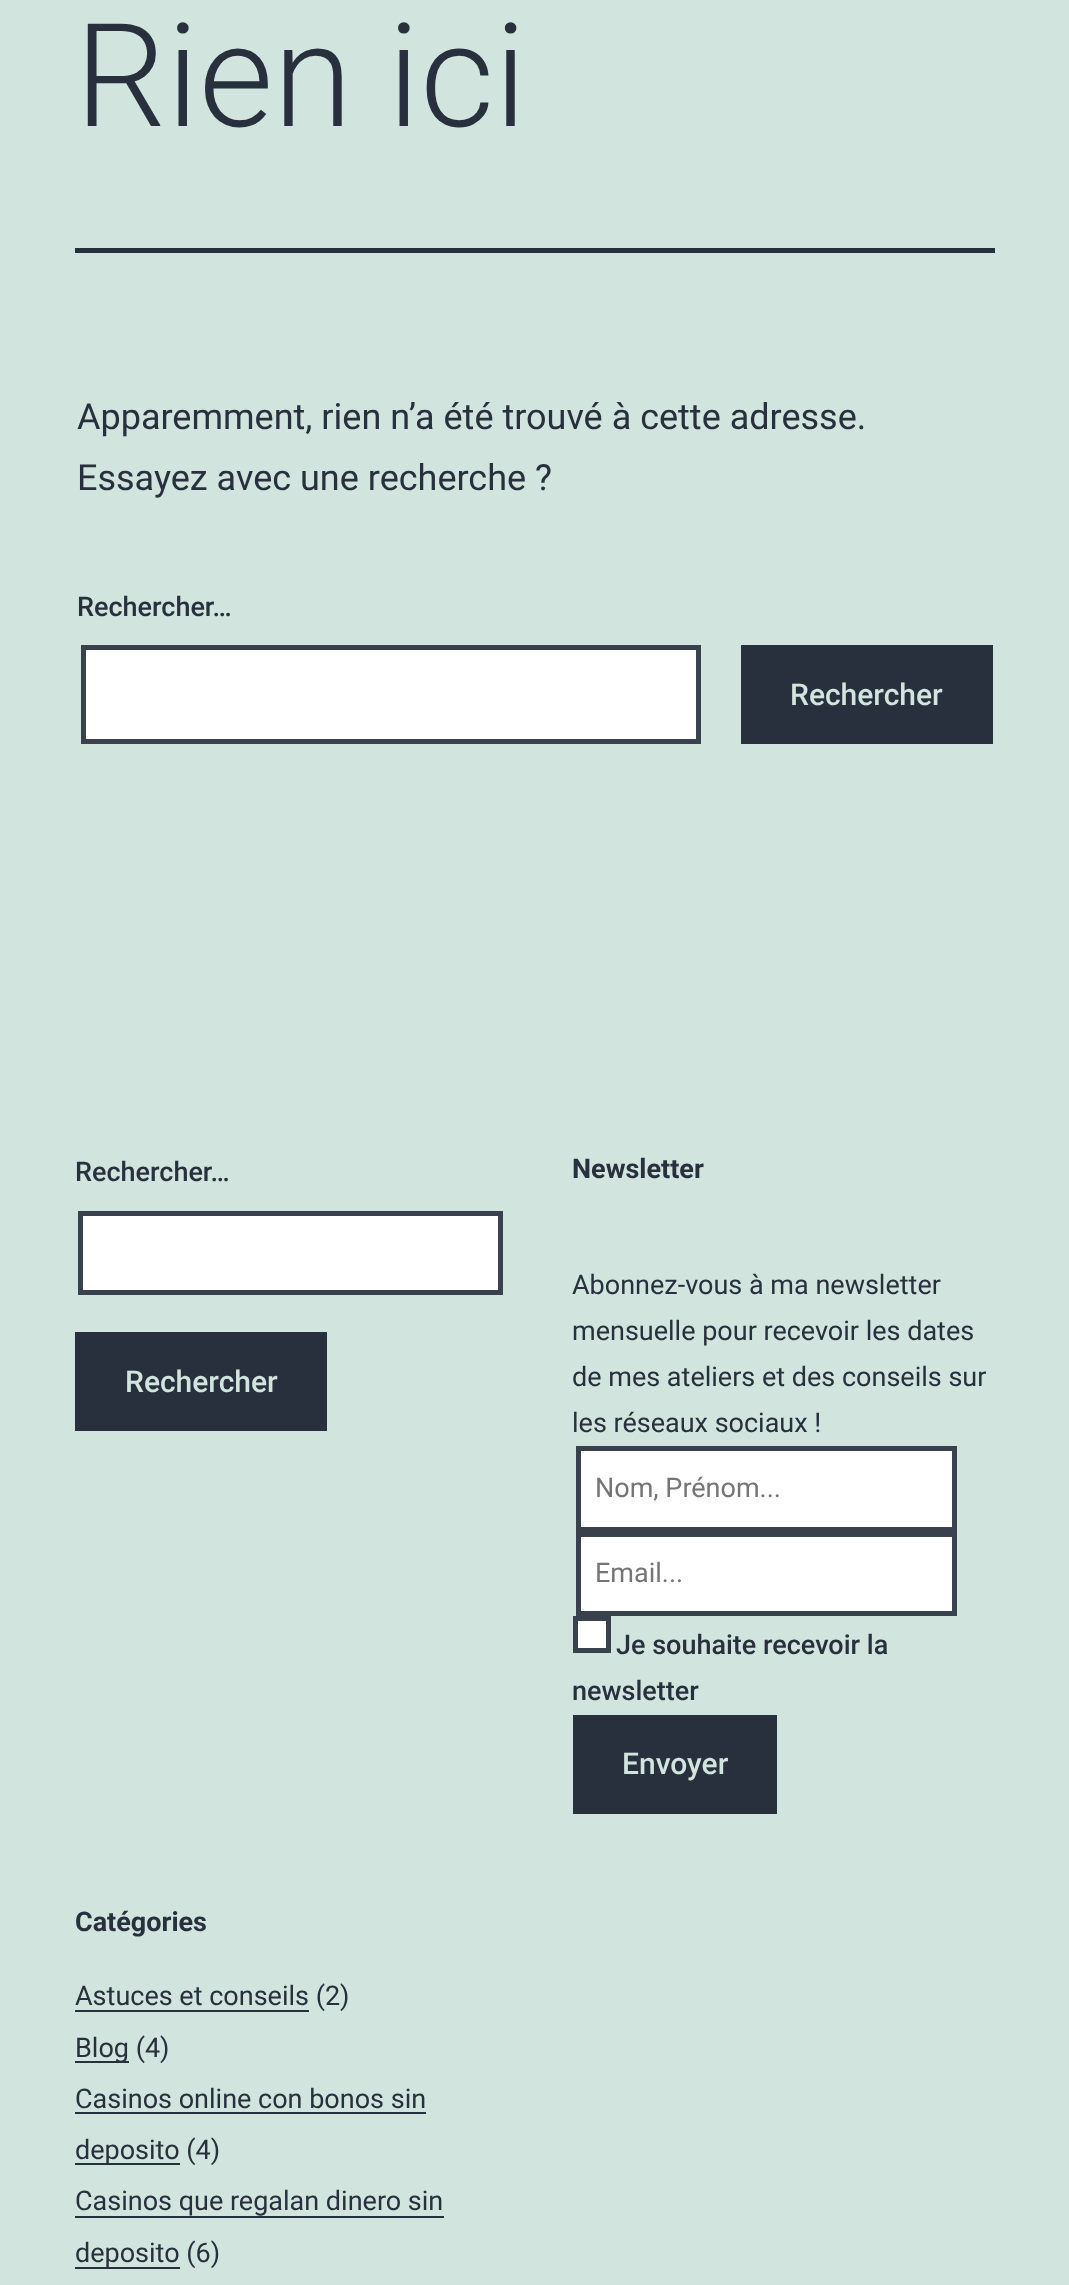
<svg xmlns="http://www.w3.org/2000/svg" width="1069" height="2285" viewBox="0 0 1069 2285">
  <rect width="100%" height="100%" fill="#d1e4dd"/>
  <path d="M75 248h920v5H75z" fill="#28303d"/>
  <path d="M83.5 647.5h615v94H83.5z" fill="#fff" stroke="#39414d" stroke-width="5"/>
  <path d="M741 645h252v99H741z" fill="#28303d"/>
  <path d="M80.5 1213.5h420v79H80.5z" fill="#fff" stroke="#39414d" stroke-width="5"/>
  <path d="M75 1332h252v99H75z" fill="#28303d"/>
  <path d="M578.5 1448.5h376v81H578.5z" fill="#fff" stroke="#39414d" stroke-width="5"/>
  <path d="M578.5 1534.5h376v79H578.5z" fill="#fff" stroke="#39414d" stroke-width="5"/>
  <path d="M575.5 1618.5h33v32H575.5z" fill="#fff" stroke="#39414d" stroke-width="5"/>
  <path d="M573 1715h204v99H573z" fill="#28303d"/>
  <path d="M75 2010h234v2H75z" fill="#28303d"/>
  <path d="M75 2061h54v2H75z" fill="#28303d"/>
  <path d="M75 2112h351v2H75z" fill="#28303d"/>
  <path d="M75 2163h105v2H75z" fill="#28303d"/>
  <path d="M75 2216h369v2H75z" fill="#28303d"/>
  <path d="M75 2267h105v2H75z" fill="#28303d"/>
  <text x="75" y="126" font-family="Roboto" font-size="144" font-weight="300" fill="#28303d">Rien ici</text>
  <g font-family="Roboto" font-size="36" fill="#28303d">
    <text x="77" y="429">Apparemment, rien n’a été trouvé à cette adresse.</text>
    <text x="77" y="490">Essayez avec une recherche ?</text>
  </g>
  <text x="77" y="616" font-family="Roboto" font-size="27" font-weight="500" fill="#28303d">Rechercher…</text>
  <text x="790" y="705" font-family="Roboto" font-size="30" font-weight="500" fill="#d1e4dd">Rechercher</text>
  <text x="75" y="1181" font-family="Roboto" font-size="27" font-weight="500" fill="#28303d">Rechercher…</text>
  <text x="125" y="1392" font-family="Roboto" font-size="30" font-weight="500" fill="#d1e4dd">Rechercher</text>
  <text x="572" y="1178" font-family="Roboto" font-size="27" font-weight="bold" fill="#28303d">Newsletter</text>
  <g font-family="Roboto" font-size="27" fill="#28303d">
    <text x="572" y="1294">Abonnez-vous à ma newsletter</text>
    <text x="572" y="1340">mensuelle pour recevoir les dates</text>
    <text x="572" y="1386">de mes ateliers et des conseils sur</text>
    <text x="572" y="1432">les réseaux sociaux !</text>
  </g>
  <g font-family="Roboto" font-size="27" fill="#757575">
    <text x="595" y="1497">Nom, Prénom...</text>
    <text x="595" y="1582">Email...</text>
  </g>
  <g font-family="Roboto" font-size="27" font-weight="500" fill="#28303d">
    <text x="616" y="1654">Je souhaite recevoir la</text>
    <text x="572" y="1700">newsletter</text>
  </g>
  <text x="622" y="1774" font-family="Roboto" font-size="30" font-weight="500" fill="#d1e4dd">Envoyer</text>
  <text x="75" y="1931" font-family="Roboto" font-size="27" font-weight="bold" fill="#28303d">Catégories</text>
  <g font-family="Roboto" font-size="27" fill="#28303d">
    <text x="75" y="2005">Astuces et conseils (2)</text>
    <text x="75" y="2057">Blog (4)</text>
    <text x="75" y="2108">Casinos online con bonos sin</text>
    <text x="75" y="2159">deposito (4)</text>
    <text x="75" y="2210">Casinos que regalan dinero sin</text>
    <text x="75" y="2262">deposito (6)</text>
  </g>
</svg>
